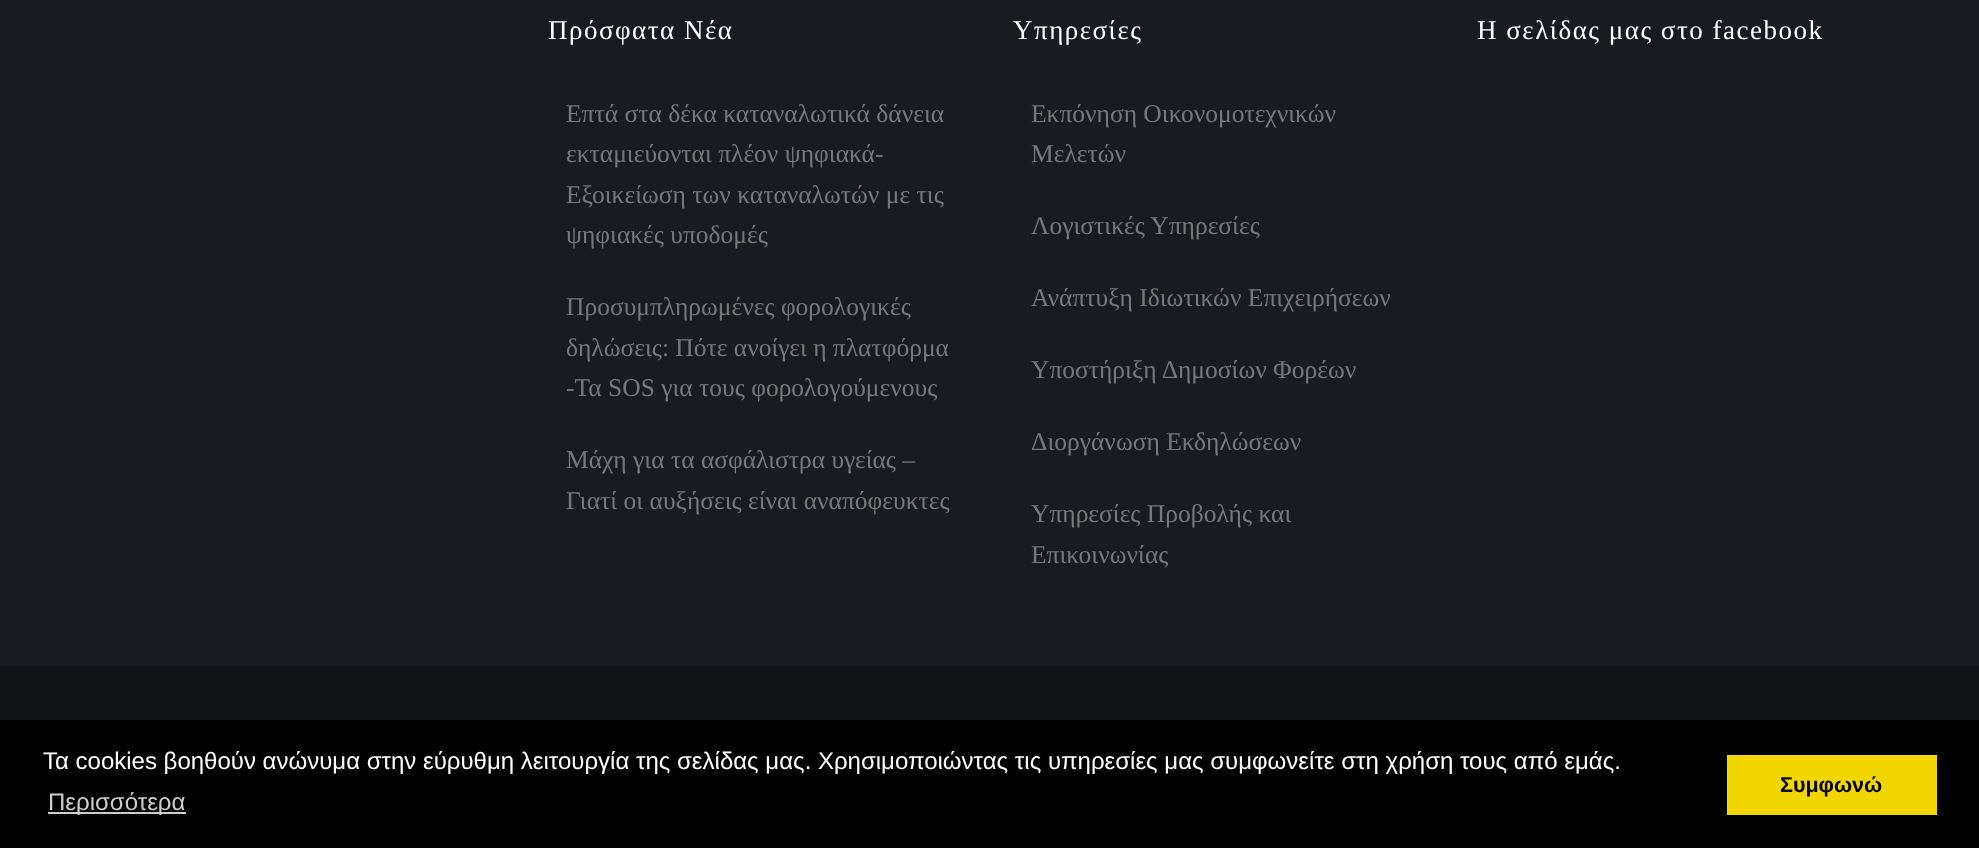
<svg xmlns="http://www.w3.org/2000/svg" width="1979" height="848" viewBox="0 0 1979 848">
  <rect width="100%" height="100%" fill="#1a1b21"/>
  <path d="M0 666h1979v54H0z" fill="#121316"/>
  <path d="M0 720h1979v128H0z" fill="#000"/>
  <path d="M48 812h138v2H48z" fill="#ccc"/>
  <path d="M1727 755h210v60H1727z" fill="#f1d600"/>
  <text x="548" y="39" font-family="Liberation Serif" font-size="27" letter-spacing="1.5" fill="#fff">Πρόσφατα Νέα</text>
  <g font-family="Liberation Serif" font-size="25.5" fill="#787878">
    <text x="566" y="122">Επτά στα δέκα καταναλωτικά δάνεια</text>
    <text x="566" y="162">εκταμιεύονται πλέον ψηφιακά-</text>
    <text x="566" y="203">Εξοικείωση των καταναλωτών με τις</text>
    <text x="566" y="243">ψηφιακές υποδομές</text>
    <text x="566" y="315">Προσυμπληρωμένες φορολογικές</text>
    <text x="566" y="356">δηλώσεις: Πότε ανοίγει η πλατφόρμα</text>
    <text x="566" y="396">-Τα SOS για τους φορολογούμενους</text>
    <text x="566" y="468">Μάχη για τα ασφάλιστρα υγείας –</text>
    <text x="566" y="509">Γιατί οι αυξήσεις είναι αναπόφευκτες</text>
  </g>
  <text x="1013" y="39" font-family="Liberation Serif" font-size="27" letter-spacing="1.5" fill="#fff">Υπηρεσίες</text>
  <g font-family="Liberation Serif" font-size="25.5" fill="#787878">
    <text x="1031" y="122">Εκπόνηση Οικονομοτεχνικών</text>
    <text x="1031" y="162">Μελετών</text>
    <text x="1031" y="234">Λογιστικές Υπηρεσίες</text>
    <text x="1031" y="306">Ανάπτυξη Ιδιωτικών Επιχειρήσεων</text>
    <text x="1031" y="378">Υποστήριξη Δημοσίων Φορέων</text>
    <text x="1031" y="450">Διοργάνωση Εκδηλώσεων</text>
    <text x="1031" y="522">Υπηρεσίες Προβολής και</text>
    <text x="1031" y="563">Επικοινωνίας</text>
  </g>
  <text x="1477" y="39" font-family="Liberation Serif" font-size="27" letter-spacing="1.5" fill="#fff">Η σελίδας μας στο facebook</text>
  <text x="43" y="769" font-family="Liberation Sans" font-size="24" fill="#fff">Τα cookies βοηθούν ανώνυμα στην εύρυθμη λειτουργία της σελίδας μας. Χρησιμοποιώντας τις υπηρεσίες μας συμφωνείτε στη χρήση τους από εμάς.</text>
  <text x="48" y="810" font-family="Liberation Sans" font-size="24" fill="#ccc">Περισσότερα</text>
  <text x="1780" y="792" font-family="Liberation Sans" font-size="21.5" font-weight="bold" fill="#000">Συμφωνώ</text>
</svg>
